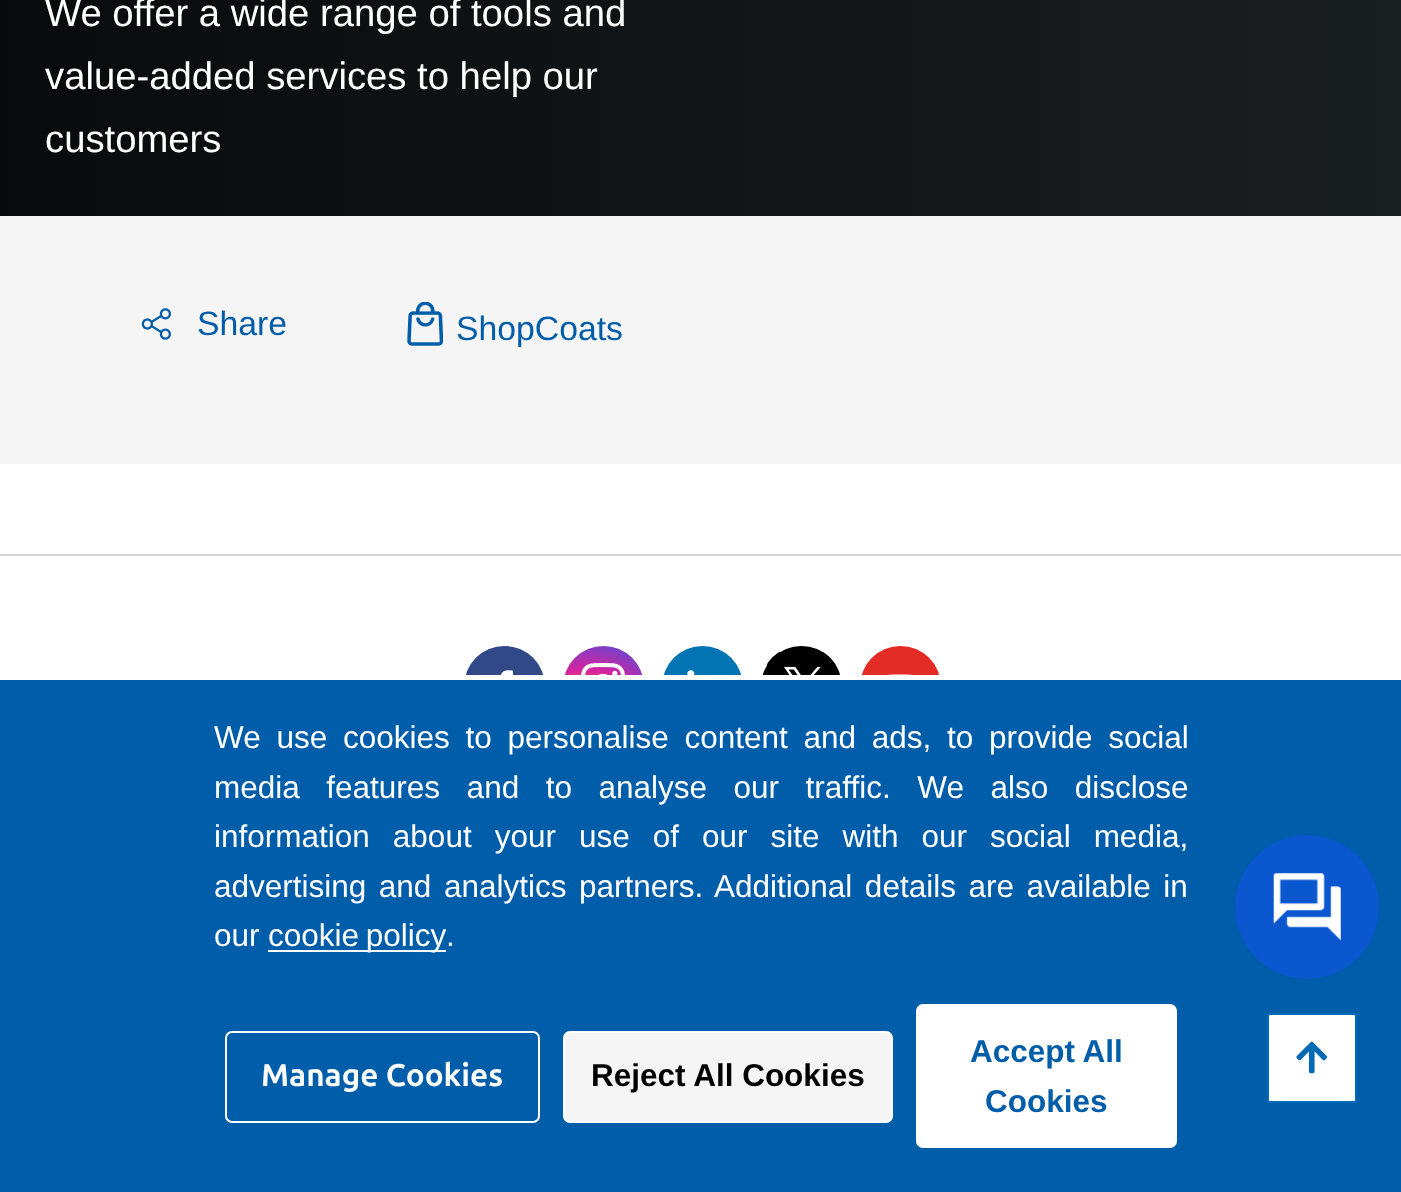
<svg xmlns="http://www.w3.org/2000/svg" width="1401" height="1192" viewBox="0 0 1401 1192">
  <defs>
    <linearGradient id="g1" gradientUnits="userSpaceOnUse" x1="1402" y1="-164" x2="0" y2="-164"><stop offset="0" stop-color="#1a1f22"/><stop offset="1" stop-color="#090a0b"/></linearGradient>
    <radialGradient id="g2" gradientUnits="userSpaceOnUse" cx="587" cy="732" r="111"><stop offset="0" stop-color="#fdf497"/><stop offset="0.03" stop-color="#fdf497"/><stop offset="0.33" stop-color="#fd5949"/><stop offset="0.56" stop-color="#d6249f"/><stop offset="1" stop-color="#285aeb"/></radialGradient>
  </defs>
  <rect width="100%" height="100%" fill="#fff"/>
  <path d="M0 0h1401v216H0z" fill="url(#g1)"/>
  <path d="M0 216h1401v248H0z" fill="#f5f5f5"/>
  <image x="141" y="308" width="30" height="32" href="img/1.png"/>
  <image x="407" y="302" width="36" height="44" href="img/2.png"/>
  <path d="M0 554h1401v2H0z" fill="#d0d0d0"/>
  <circle cx="504.5" cy="686.5" r="40.5" fill="#314a87"/>
  <image x="500" y="670" width="14" height="5" href="img/3.png"/>
  <circle cx="603.5" cy="686.5" r="40.5" fill="url(#g2)"/>
  <image x="581" y="663" width="44" height="12" href="img/4.png"/>
  <circle cx="702.5" cy="686.5" r="40.5" fill="#0274b3"/>
  <image x="687" y="670" width="8" height="5" href="img/5.png"/>
  <circle cx="801.5" cy="686.5" r="40.5" fill="#000"/>
  <image x="767" y="652" width="68" height="23" href="img/6.png"/>
  <circle cx="900.5" cy="686.5" r="40.5" fill="#e42c26"/>
  <image x="887" y="674" width="26" height="1" href="img/7.png"/>
  <path d="M0 680h1401v512H0z" fill="#005da9"/>
  <path d="M1268 1014h88v88H1268z" fill="#fff" stroke="#006ab5" stroke-width="2"/>
  <image x="1296" y="1041" width="31" height="33" href="img/8.png"/>
  <path d="M464 675h477v5H464z" fill="#fff"/>
  <path d="M268 950h178v2H268z" fill="#fff"/>
  <rect x="226" y="1032" width="313" height="90" rx="6" fill="none" stroke="#fff" stroke-width="2"/>
  <rect x="564" y="1032" width="328" height="90" rx="6" fill="#f5f5f5" stroke="#fff" stroke-width="2"/>
  <rect x="917" y="1005" width="259" height="142" rx="6" fill="#fff" stroke="#fff" stroke-width="2"/>
  <circle cx="1307" cy="907" r="72" fill="#0b57d0"/>
  <image x="1273" y="873" width="68" height="68" href="img/9.png"/>
  <g font-family="Liberation Sans" font-size="38.25" fill="#fff">
    <text x="45" y="26">We offer a wide range of tools and</text>
    <text x="45" y="89">value-added services to help our</text>
    <text x="45" y="152">customers</text>
  </g>
  <g font-family="Liberation Sans" font-size="33.75" fill="#005da9">
    <text x="197" y="335">Share</text>
    <text x="456" y="340">ShopCoats</text>
  </g>
  <g font-family="Liberation Sans" font-size="31.5" fill="#fff">
    <text x="214" y="748" word-spacing="7">We use cookies to personalise content and ads, to provide social</text>
    <text x="214" y="798" word-spacing="17.75">media features and to analyse our traffic. We also disclose</text>
    <text x="214" y="847" word-spacing="14.25">information about your use of our site with our social media,</text>
    <text x="214" y="897" word-spacing="3.75">advertising and analytics partners. Additional details are available in</text>
    <text x="214" y="946">our</text>
    <text x="268" y="946" word-spacing="-2">cookie policy</text>
    <text x="446" y="946">.</text>
  </g>
  <text x="261" y="1086" font-family="Ubuntu" font-size="31.5" font-weight="bold" fill="#fff">Manage Cookies</text>
  <text x="591" y="1086" font-family="Liberation Sans" font-size="31.5" font-weight="bold" fill="#000">Reject All Cookies</text>
  <g font-family="Liberation Sans" font-size="31.5" font-weight="bold" fill="#005da9">
    <text x="970" y="1062">Accept All</text>
    <text x="985" y="1112">Cookies</text>
  </g>
</svg>
